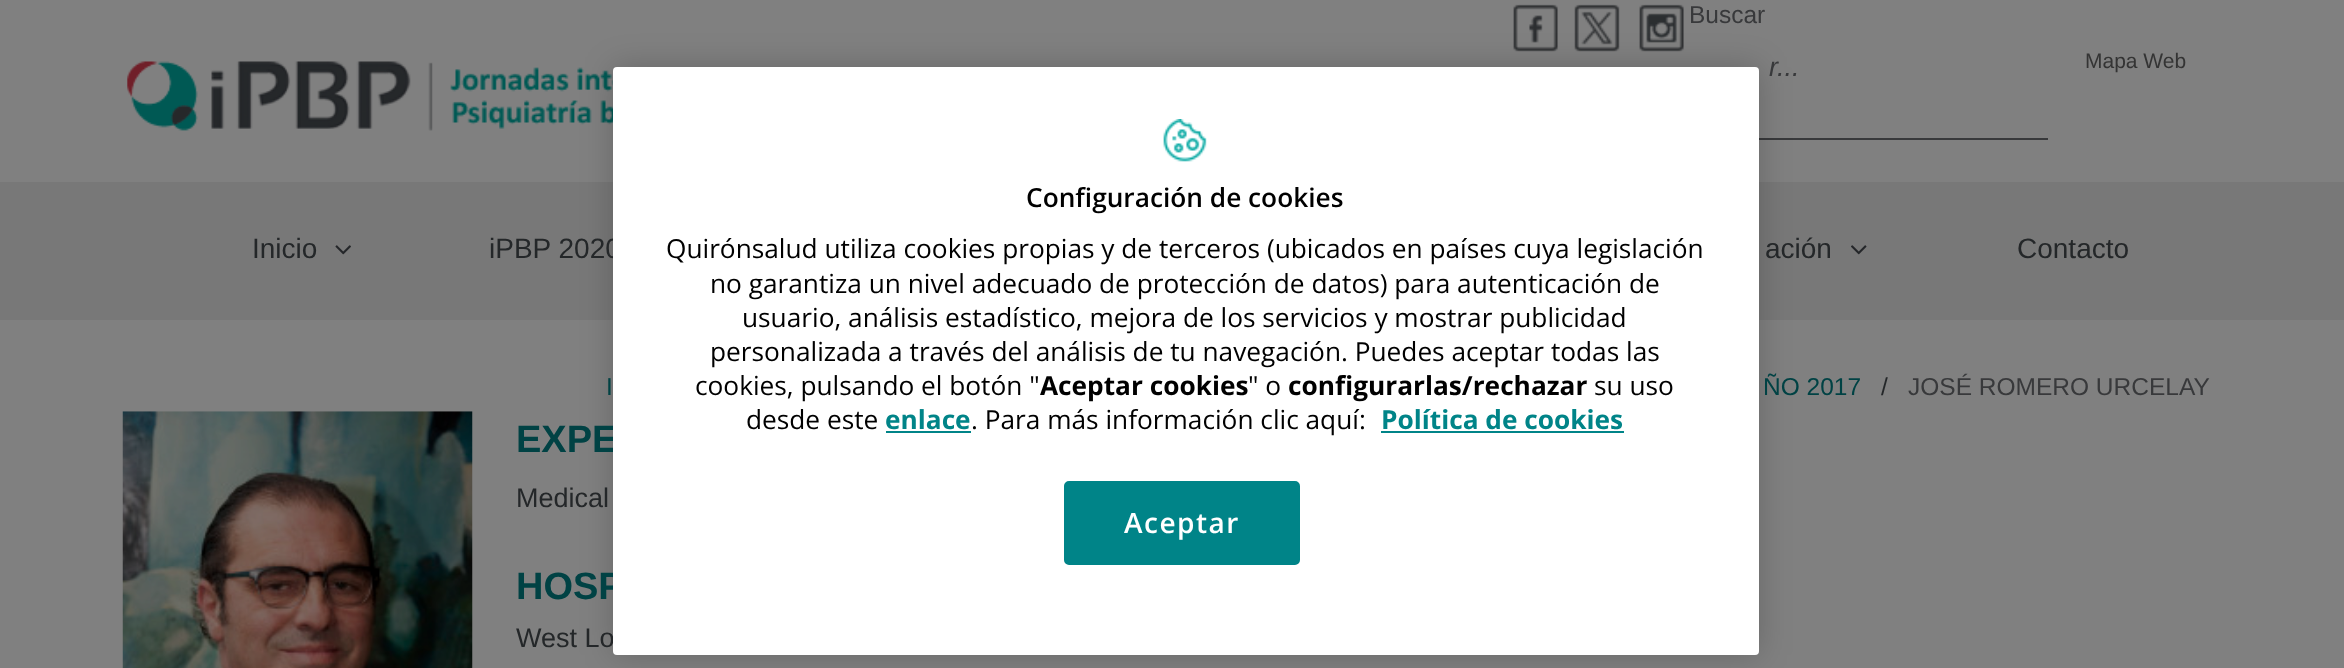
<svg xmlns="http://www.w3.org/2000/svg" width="2344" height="668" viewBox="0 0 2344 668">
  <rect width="100%" height="100%" fill="#808080"/>
  <image x="1513" y="4" width="45" height="48" href="img/1.png"/>
  <image x="1574" y="4" width="46" height="48" href="img/2.png"/>
  <image x="1639" y="4" width="45" height="48" href="img/3.png"/>
  <path d="M1759 138h289v2H1759z" fill="#38393b"/>
  <image x="127" y="61" width="486" height="70" href="img/4.png"/>
  <path d="M0 182h2344v138H0z" fill="#787878"/>
  <image x="335" y="245" width="16" height="10" href="img/5.png"/>
  <image x="1851" y="245" width="16" height="10" href="img/6.png"/>
  <image x="122" y="411" width="351" height="257" href="img/7.png"/>
  <rect x="613" y="67" width="1146" height="588" rx="4" fill="#00000033" filter="blur(16px)"/>
  <text x="1689" y="23" font-family="Liberation Sans" font-size="24.5" fill="#38393b">Buscar</text>
  <text x="1769" y="76" font-family="Liberation Sans" font-size="27" font-style="italic" fill="#38393b">r...</text>
  <text x="2085" y="68" font-family="Liberation Sans" font-size="21" fill="#343434">Mapa Web</text>
  <g font-family="Liberation Sans" font-size="28" fill="#242729">
    <text x="252" y="258">Inicio</text>
    <text x="489" y="258">iPBP 2020</text>
    <text x="1765" y="258">ación</text>
    <text x="2017" y="258">Contacto</text>
  </g>
  <g font-family="Liberation Sans" font-size="24.5" fill="#004244">
    <text x="606" y="395">I</text>
    <text x="1763" y="395">ÑO 2017</text>
  </g>
  <text x="1881" y="395" font-family="Liberation Sans" font-size="24.5" fill="#242729">/</text>
  <text x="1908" y="395" font-family="Liberation Sans" font-size="24.5" fill="#38393b">JOSÉ ROMERO URCELAY</text>
  <text x="516" y="452" font-family="Liberation Sans" font-size="38" font-weight="bold" fill="#004244">EXPE</text>
  <text x="516" y="507" font-family="Liberation Sans" font-size="27" fill="#242729">Medical</text>
  <text x="516" y="599" font-family="Liberation Sans" font-size="38" font-weight="bold" fill="#004244">HOSP</text>
  <text x="516" y="647" font-family="Liberation Sans" font-size="27" fill="#242729">West Lo</text>
  <rect x="613" y="67" width="1146" height="588" rx="4" fill="#fff"/>
  <image x="1163" y="119" width="44" height="43" href="img/8.png"/>
  <text x="1026" y="207" font-family="Open Sans" font-size="26.25" font-weight="600" fill="#000">Configuración de cookies</text>
  <g font-family="Open Sans" font-size="26.25" fill="#000">
    <text x="666" y="258">Quirónsalud utiliza cookies propias y de terceros (ubicados en países cuya legislación</text>
    <text x="710" y="293">no garantiza un nivel adecuado de protección de datos) para autenticación de</text>
    <text x="742" y="327">usuario, análisis estadístico, mejora de los servicios y mostrar publicidad</text>
    <text x="710" y="361">personalizada a través del análisis de tu navegación. Puedes aceptar todas las</text>
    <text x="695" y="395">cookies, pulsando el botón "</text>
  </g>
  <text x="1040" y="395" font-family="Open Sans" font-size="26.25" font-weight="bold" fill="#000">Aceptar cookies</text>
  <text x="1248" y="395" font-family="Open Sans" font-size="26.25" fill="#000">" o</text>
  <text x="1288" y="395" font-family="Open Sans" font-size="26.25" font-weight="bold" fill="#000">configurarlas/rechazar</text>
  <g font-family="Open Sans" font-size="26.25" fill="#000">
    <text x="1594" y="395">su uso</text>
    <text x="746" y="429">desde este</text>
  </g>
  <text x="885" y="429" font-family="Open Sans" font-size="26.25" font-weight="bold" fill="#008488">enlace</text>
  <path d="M886 431h85v2H886z" fill="#008488"/>
  <text x="971" y="429" font-family="Open Sans" font-size="26.25" fill="#000">. Para más información clic aquí:</text>
  <text x="1381" y="429" font-family="Open Sans" font-size="26.25" font-weight="bold" fill="#008488">Política de cookies</text>
  <path d="M1381 431h243v2H1381z" fill="#008488"/>
  <rect x="1065" y="482" width="234" height="82" rx="4" fill="#008488" stroke="#008488" stroke-width="2"/>
  <text x="1124" y="533" font-family="Open Sans" font-size="28" font-weight="600" letter-spacing="1.5" fill="#fff">Aceptar</text>
</svg>
